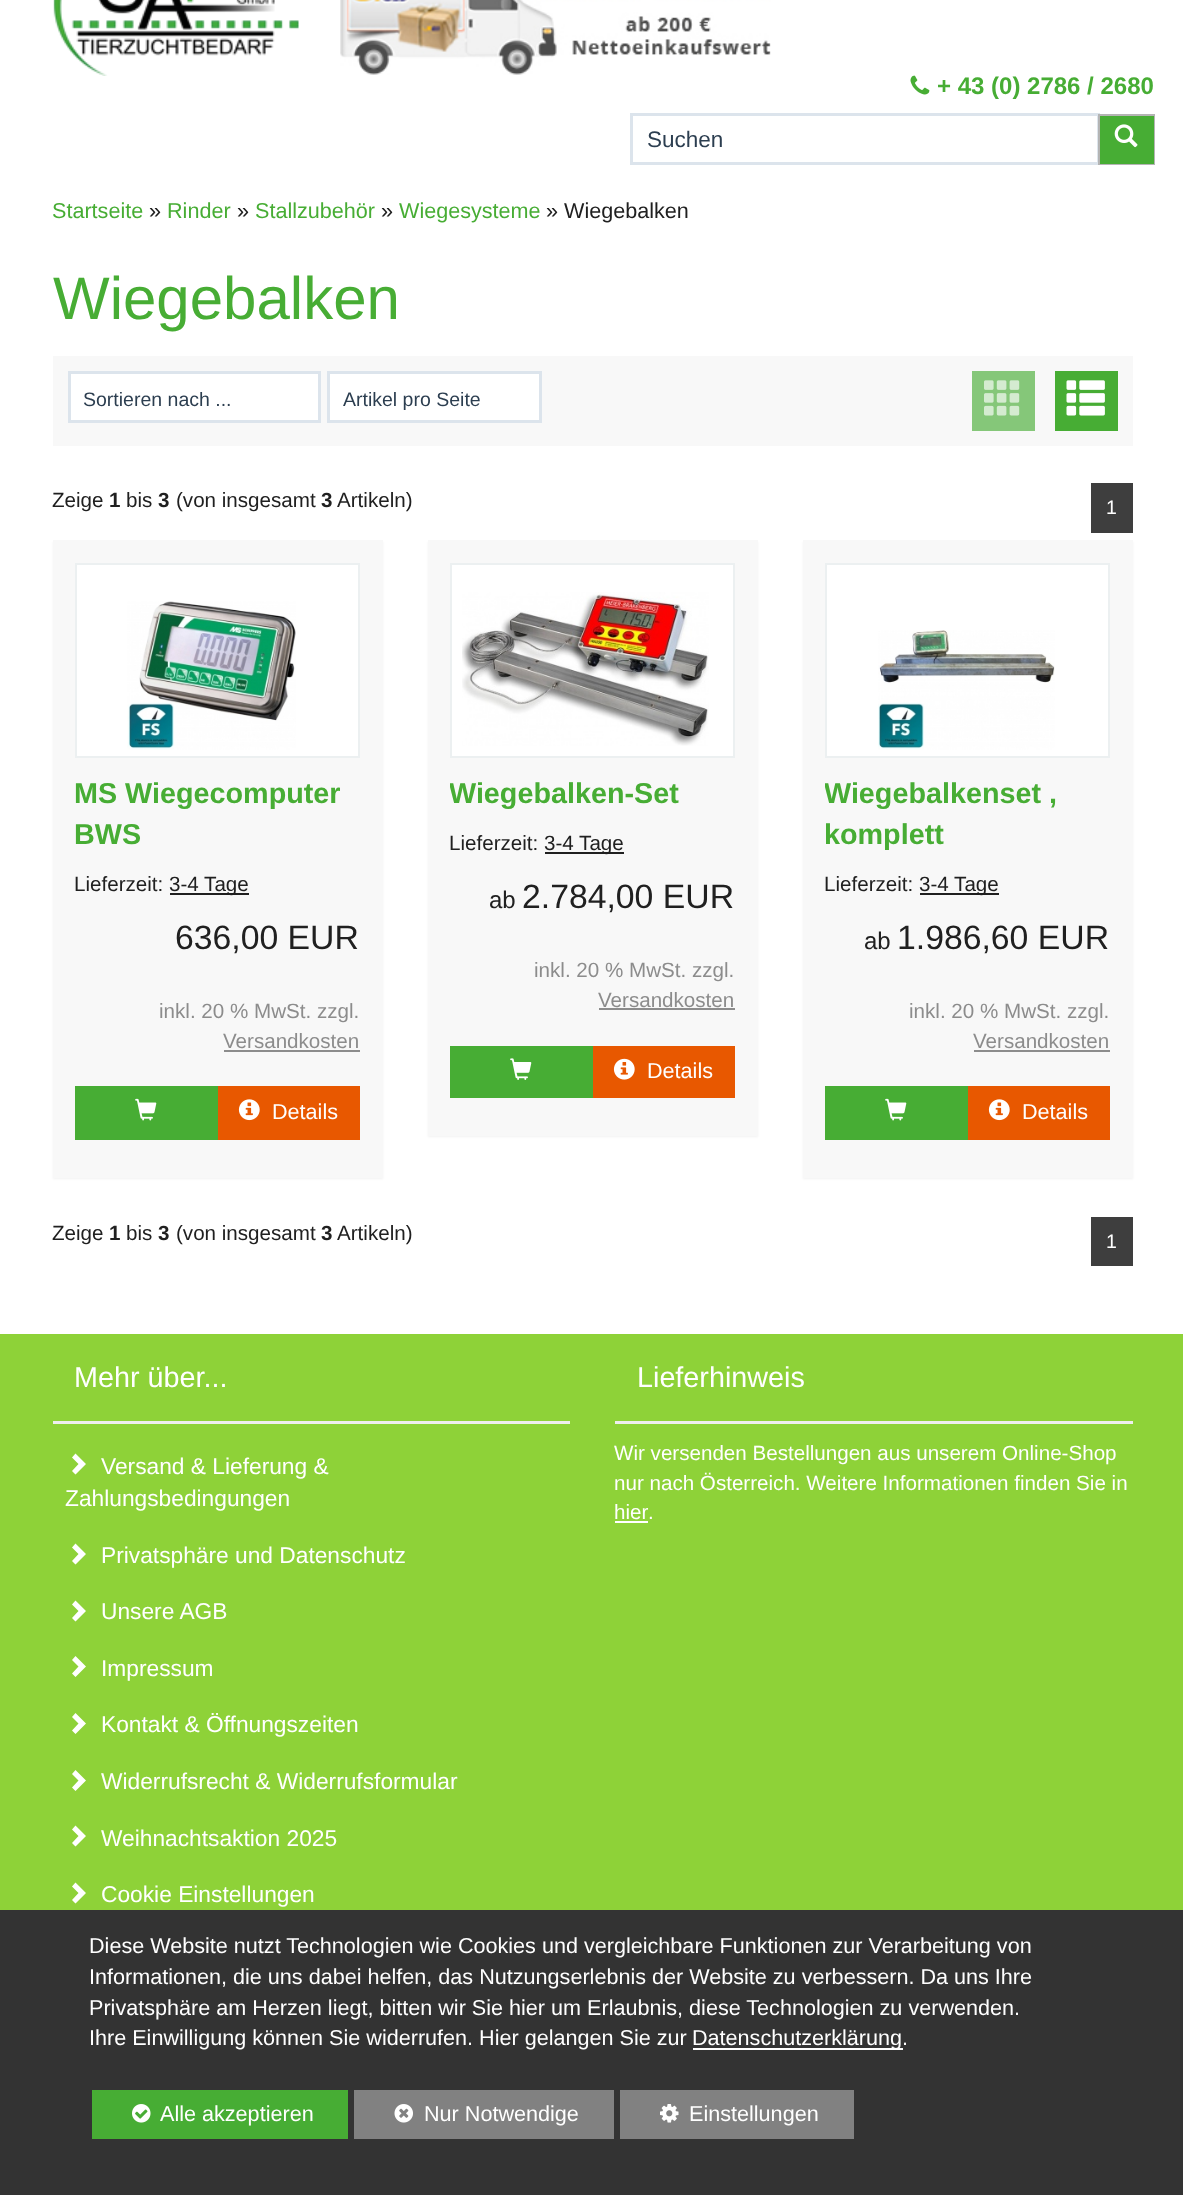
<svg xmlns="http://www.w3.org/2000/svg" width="1183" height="2195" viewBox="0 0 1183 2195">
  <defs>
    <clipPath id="clip1"><path d="M450 773h285v42H450z"/></clipPath>
    <clipPath id="clip2"><path d="M825 773h285v82H825z"/></clipPath>
  </defs>
  <rect width="100%" height="100%" fill="#fff"/>
  <image x="53" y="0" width="246" height="76" href="img/1.png"/>
  <image x="340" y="0" width="431" height="75" href="img/2.png"/>
  <image x="910" y="75" width="20" height="20" href="img/3.png"/>
  <path d="M631.5 114.5h467v49H631.5z" fill="none" stroke="#dce4ec" stroke-width="3"/>
  <path d="M1098 114h57v51H1098z" fill="#b4b4b4"/>
  <path d="M1100 116h54v48H1100z" fill="#47ad34"/>
  <image x="1114" y="124" width="24" height="24" href="img/4.png"/>
  <path d="M53 356h1080v90H53z" fill="#f8f8f8"/>
  <path d="M69.5 372.5h250v49H69.5z" fill="#fff" stroke="#dce4ec" stroke-width="3"/>
  <path d="M328.5 372.5h212v49H328.5z" fill="#fff" stroke="#dce4ec" stroke-width="3"/>
  <path d="M972 371h63v60H972z" fill="#85c779"/>
  <image x="984" y="380" width="36" height="36" href="img/5.png"/>
  <path d="M1055 371h63v60H1055z" fill="#47ad34"/>
  <image x="1066" y="380" width="39" height="36" href="img/6.png"/>
  <path d="M1091 483h42v50H1091z" fill="#3e3e3e"/>
  <path d="M53 542h330v637H53z" fill="#0000000d" filter="blur(1px)"/>
  <path d="M53 540h330v638H53z" fill="#f8f8f8"/>
  <path d="M76 564h283v193H76z" fill="#fff" stroke="#ecf0f1" stroke-width="2"/>
  <image x="127" y="601" width="169" height="149" href="img/7.png"/>
  <path d="M170 893h79v2H170z" fill="#202020"/>
  <path d="M224 1050h136v2H224z" fill="#8c8c8c"/>
  <path d="M75 1086h143v54H75z" fill="#47ad34"/>
  <image x="135" y="1098" width="22" height="23" href="img/8.png"/>
  <path d="M218 1086h142v54H218z" fill="#e85800"/>
  <image x="238" y="1099" width="22" height="22" href="img/9.png"/>
  <path d="M428 542h330v595H428z" fill="#0000000d" filter="blur(1px)"/>
  <path d="M428 540h330v596H428z" fill="#f8f8f8"/>
  <path d="M451 564h283v193H451z" fill="#fff" stroke="#ecf0f1" stroke-width="2"/>
  <image x="462" y="592" width="247" height="154" href="img/10.png"/>
  <path d="M545 852h79v2H545z" fill="#202020"/>
  <path d="M599 1008h136v2H599z" fill="#8c8c8c"/>
  <path d="M450 1046h143v52H450z" fill="#47ad34"/>
  <image x="510" y="1058" width="22" height="22" href="img/11.png"/>
  <path d="M593 1046h142v52H593z" fill="#e85800"/>
  <image x="613" y="1058" width="22" height="22" href="img/12.png"/>
  <path d="M803 542h330v637H803z" fill="#0000000d" filter="blur(1px)"/>
  <path d="M803 540h330v638H803z" fill="#f8f8f8"/>
  <path d="M826 564h283v193H826z" fill="#fff" stroke="#ecf0f1" stroke-width="2"/>
  <image x="878" y="630" width="177" height="120" href="img/13.png"/>
  <path d="M920 893h79v2H920z" fill="#202020"/>
  <path d="M974 1050h136v2H974z" fill="#8c8c8c"/>
  <path d="M825 1086h143v54H825z" fill="#47ad34"/>
  <image x="885" y="1098" width="22" height="23" href="img/8.png"/>
  <path d="M968 1086h142v54H968z" fill="#e85800"/>
  <image x="988" y="1099" width="22" height="22" href="img/9.png"/>
  <path d="M1091 1217h42v49H1091z" fill="#3e3e3e"/>
  <path d="M0 1334h1183v576H0z" fill="#8ed238"/>
  <path d="M53 1421h517v3H53z" fill="#eee"/>
  <path d="M86 1464L75.5 1474.5L72 1471L78.5 1464L72 1457.5L75.5 1453.5Z" fill="#fff"/>
  <path d="M86 1554L75.5 1564.5L72 1561L78.5 1554L72 1547.5L75.5 1543.5Z" fill="#fff"/>
  <path d="M86 1611L75.5 1621.5L72 1618L78.5 1611L72 1604.5L75.5 1600.5Z" fill="#fff"/>
  <path d="M86 1666.5L75.5 1677L72 1673.5L78.5 1666.5L72 1660L75.5 1656Z" fill="#fff"/>
  <path d="M86 1723.5L75.5 1734L72 1730.5L78.5 1723.5L72 1717L75.5 1713Z" fill="#fff"/>
  <path d="M86 1780.5L75.5 1791L72 1787.5L78.5 1780.5L72 1774L75.5 1770Z" fill="#fff"/>
  <path d="M86 1836L75.5 1846.5L72 1843L78.5 1836L72 1829.5L75.5 1825.5Z" fill="#fff"/>
  <path d="M86 1893L75.5 1903.5L72 1900L78.5 1893L72 1886.5L75.5 1882.5Z" fill="#fff"/>
  <path d="M615 1421h518v3H615z" fill="#eee"/>
  <path d="M615 1521h33v2H615z" fill="#fff"/>
  <path d="M0 1910h1183v285H0z" fill="#333"/>
  <path d="M693 2048h210v2H693z" fill="#fff"/>
  <path d="M92 2090h256v49H92z" fill="#47ad34"/>
  <image x="132" y="2104" width="19" height="19" href="img/14.png"/>
  <path d="M354 2090h260v49H354z" fill="#818181"/>
  <image x="394" y="2104" width="19" height="19" href="img/15.png"/>
  <path d="M620 2090h234v49H620z" fill="#818181"/>
  <image x="660" y="2104" width="19" height="19" href="img/16.png"/>
  <text x="937" y="94" font-family="Liberation Sans" font-size="24" font-weight="bold" fill="#47ad34">+ 43 (0) 2786 / 2680</text>
  <text x="647" y="147" font-family="Liberation Sans" font-size="22.5" fill="#2c3e50">Suchen</text>
  <text x="52" y="218" font-family="Liberation Sans" font-size="21.6" fill="#47ad34">Startseite</text>
  <text x="149" y="218" font-family="Liberation Sans" font-size="21.6" fill="#202020">»</text>
  <text x="167" y="218" font-family="Liberation Sans" font-size="21.6" fill="#47ad34">Rinder</text>
  <text x="237" y="218" font-family="Liberation Sans" font-size="21.6" fill="#202020">»</text>
  <text x="255" y="218" font-family="Liberation Sans" font-size="21.6" fill="#47ad34">Stallzubehör</text>
  <text x="381" y="218" font-family="Liberation Sans" font-size="21.6" fill="#202020">»</text>
  <text x="399" y="218" font-family="Liberation Sans" font-size="21.6" fill="#47ad34">Wiegesysteme</text>
  <text x="546" y="218" font-family="Liberation Sans" font-size="21.6" fill="#202020">» Wiegebalken</text>
  <text x="53" y="319" font-family="Liberation Sans" font-size="60" fill="#47ad34">Wiegebalken</text>
  <g font-family="Liberation Sans" font-size="19.5" fill="#2c3e50">
    <text x="83" y="406">Sortieren nach ...</text>
    <text x="343" y="406">Artikel pro Seite</text>
  </g>
  <text x="52" y="507" font-family="Liberation Sans" font-size="20.6" fill="#202020">Zeige</text>
  <text x="109" y="507" font-family="Liberation Sans" font-size="20.6" font-weight="bold" fill="#202020">1</text>
  <text x="126" y="507" font-family="Liberation Sans" font-size="20.6" fill="#202020">bis</text>
  <text x="158" y="507" font-family="Liberation Sans" font-size="20.6" font-weight="bold" fill="#202020">3</text>
  <text x="176" y="507" font-family="Liberation Sans" font-size="20.6" fill="#202020">(von insgesamt</text>
  <text x="321" y="507" font-family="Liberation Sans" font-size="20.6" font-weight="bold" fill="#202020">3</text>
  <text x="337" y="507" font-family="Liberation Sans" font-size="20.6" fill="#202020">Artikeln)</text>
  <text x="1106" y="514" font-family="Liberation Sans" font-size="19.5" fill="#fff">1</text>
  <g font-family="Liberation Sans" font-size="28.75" font-weight="bold" fill="#47ad34">
    <text x="74" y="803">MS Wiegecomputer</text>
    <text x="74" y="844">BWS</text>
  </g>
  <g font-family="Liberation Sans" font-size="20.6" fill="#202020">
    <text x="74" y="891">Lieferzeit:</text>
    <text x="169" y="891">3-4 Tage</text>
  </g>
  <text x="175" y="949" font-family="Liberation Sans" font-size="33.75" fill="#202020">636,00 EUR</text>
  <g font-family="Liberation Sans" font-size="20.6" fill="#8c8c8c">
    <text x="159" y="1018">inkl. 20 % MwSt. zzgl.</text>
    <text x="223" y="1048">Versandkosten</text>
  </g>
  <text x="272" y="1119" font-family="Liberation Sans" font-size="21.6" fill="#fff">Details</text>
  <g clip-path="url(#clip1)">
    <text x="449" y="803" font-family="Liberation Sans" font-size="28.75" font-weight="bold" fill="#47ad34">Wiegebalken-Set</text>
  </g>
  <g font-family="Liberation Sans" font-size="20.6" fill="#202020">
    <text x="449" y="850">Lieferzeit:</text>
    <text x="544" y="850">3-4 Tage</text>
  </g>
  <text x="489" y="908" font-family="Liberation Sans" font-size="24" fill="#202020">ab</text>
  <text x="522" y="908" font-family="Liberation Sans" font-size="33.75" fill="#202020">2.784,00 EUR</text>
  <g font-family="Liberation Sans" font-size="20.6" fill="#8c8c8c">
    <text x="534" y="977">inkl. 20 % MwSt. zzgl.</text>
    <text x="598" y="1007">Versandkosten</text>
  </g>
  <text x="647" y="1078" font-family="Liberation Sans" font-size="21.6" fill="#fff">Details</text>
  <g clip-path="url(#clip2)">
    <text x="824" y="803" font-family="Liberation Sans" font-size="28.75" font-weight="bold" fill="#47ad34">Wiegebalkenset ,</text>
  </g>
  <text x="824" y="844" font-family="Liberation Sans" font-size="28.75" font-weight="bold" fill="#47ad34">komplett</text>
  <g font-family="Liberation Sans" font-size="20.6" fill="#202020">
    <text x="824" y="891">Lieferzeit:</text>
    <text x="919" y="891">3-4 Tage</text>
  </g>
  <text x="864" y="949" font-family="Liberation Sans" font-size="24" fill="#202020">ab</text>
  <text x="897" y="949" font-family="Liberation Sans" font-size="33.75" fill="#202020">1.986,60 EUR</text>
  <g font-family="Liberation Sans" font-size="20.6" fill="#8c8c8c">
    <text x="909" y="1018">inkl. 20 % MwSt. zzgl.</text>
    <text x="973" y="1048">Versandkosten</text>
  </g>
  <text x="1022" y="1119" font-family="Liberation Sans" font-size="21.6" fill="#fff">Details</text>
  <text x="52" y="1240" font-family="Liberation Sans" font-size="20.6" fill="#202020">Zeige</text>
  <text x="109" y="1240" font-family="Liberation Sans" font-size="20.6" font-weight="bold" fill="#202020">1</text>
  <text x="126" y="1240" font-family="Liberation Sans" font-size="20.6" fill="#202020">bis</text>
  <text x="158" y="1240" font-family="Liberation Sans" font-size="20.6" font-weight="bold" fill="#202020">3</text>
  <text x="176" y="1240" font-family="Liberation Sans" font-size="20.6" fill="#202020">(von insgesamt</text>
  <text x="321" y="1240" font-family="Liberation Sans" font-size="20.6" font-weight="bold" fill="#202020">3</text>
  <text x="337" y="1240" font-family="Liberation Sans" font-size="20.6" fill="#202020">Artikeln)</text>
  <text x="1106" y="1248" font-family="Liberation Sans" font-size="19.5" fill="#fff">1</text>
  <text x="74" y="1387" font-family="Liberation Sans" font-size="28.75" fill="#fff">Mehr über...</text>
  <g font-family="Liberation Sans" font-size="22.75" fill="#fff">
    <text x="101" y="1474">Versand &amp; Lieferung &amp;</text>
    <text x="65" y="1506">Zahlungsbedingungen</text>
    <text x="101" y="1563">Privatsphäre und Datenschutz</text>
    <text x="101" y="1619">Unsere AGB</text>
    <text x="101" y="1676">Impressum</text>
    <text x="101" y="1732">Kontakt &amp; Öffnungszeiten</text>
    <text x="101" y="1789">Widerrufsrecht &amp; Widerrufsformular</text>
    <text x="101" y="1846">Weihnachtsaktion 2025</text>
    <text x="101" y="1902">Cookie Einstellungen</text>
  </g>
  <text x="637" y="1387" font-family="Liberation Sans" font-size="28.75" fill="#fff">Lieferhinweis</text>
  <g font-family="Liberation Sans" font-size="20.6" fill="#fff">
    <text x="614" y="1460">Wir versenden Bestellungen aus unserem Online-Shop</text>
    <text x="614" y="1490">nur nach Österreich. Weitere Informationen finden Sie in</text>
    <text x="614" y="1519">hier</text>
    <text x="648" y="1519">.</text>
  </g>
  <g font-family="Liberation Sans" font-size="21.6" fill="#fff">
    <text x="89" y="1953">Diese Website nutzt Technologien wie Cookies und vergleichbare Funktionen zur Verarbeitung von</text>
    <text x="89" y="1984">Informationen, die uns dabei helfen, das Nutzungserlebnis der Website zu verbessern. Da uns Ihre</text>
    <text x="89" y="2015">Privatsphäre am Herzen liegt, bitten wir Sie hier um Erlaubnis, diese Technologien zu verwenden.</text>
    <text x="89" y="2045">Ihre Einwilligung können Sie widerrufen. Hier gelangen Sie zur</text>
    <text x="692" y="2045">Datenschutzerklärung.</text>
    <text x="160" y="2121">Alle akzeptieren</text>
    <text x="424" y="2121">Nur Notwendige</text>
    <text x="689" y="2121">Einstellungen</text>
  </g>
</svg>
